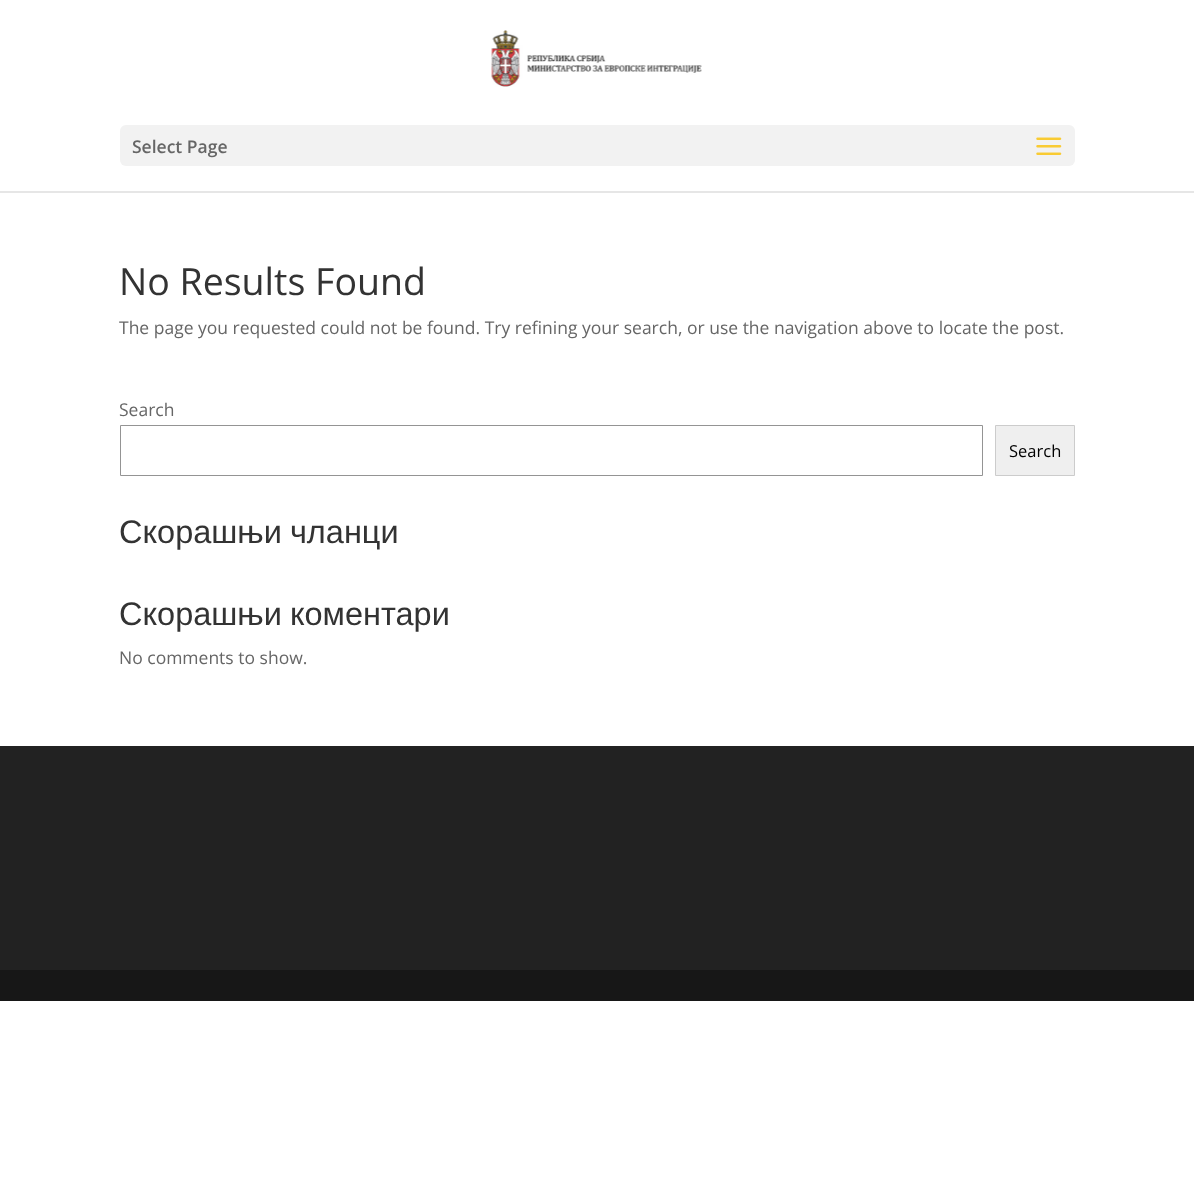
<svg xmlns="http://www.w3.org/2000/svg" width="1194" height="1202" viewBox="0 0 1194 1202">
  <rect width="100%" height="100%" fill="#fff"/>
  <path d="M0 191h1194v2H0z" fill="#e6e6e6"/>
  <image x="491" y="30" width="211" height="57" href="img/1.png"/>
  <rect x="120" y="125" width="955" height="41" rx="6" fill="#f2f2f2"/>
  <image x="1036" y="137" width="26" height="18" href="img/2.png"/>
  <path d="M120.5 425.5h862v50H120.5z" fill="none" stroke="#949494"/>
  <path d="M995.5 425.5h79v50H995.5z" fill="#efefef" stroke="#ccc"/>
  <path d="M0 746h1194v224H0z" fill="#222"/>
  <path d="M0 970h1194v31H0z" fill="#171717"/>
  <text x="132" y="153" font-family="Open Sans" font-size="17.5" font-weight="600" fill="#666">Select Page</text>
  <text x="119" y="295" font-family="Open Sans" font-size="37.5" fill="#333">No Results Found</text>
  <g font-family="Open Sans" font-size="17.5" fill="#666">
    <text x="119" y="334">The page you requested could not be found. Try refining your search, or use the navigation above to locate the post.</text>
    <text x="119" y="416">Search</text>
  </g>
  <text x="1009" y="457" font-family="Open Sans" font-size="16.5" fill="#000">Search</text>
  <g font-family="Liberation Sans" font-size="32.5" fill="#333">
    <text x="119" y="543" word-spacing="-1">Скорашњи чланци</text>
    <text x="119" y="625" word-spacing="-1">Скорашњи коментари</text>
  </g>
  <text x="119" y="664" font-family="Open Sans" font-size="17.5" fill="#666">No comments to show.</text>
</svg>
